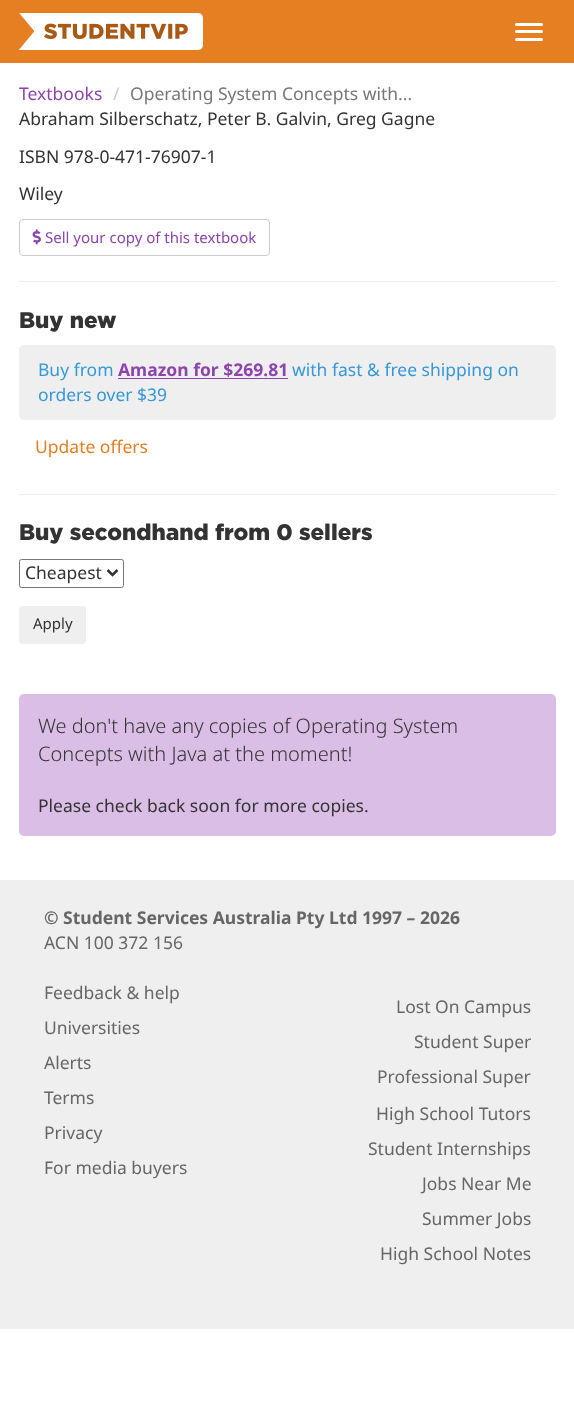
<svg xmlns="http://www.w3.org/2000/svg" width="574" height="1412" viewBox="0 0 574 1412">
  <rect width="100%" height="100%" fill="#fff"/>
  <path d="M0 0h574v63H0z" fill="#e67e22"/>
  <image x="19" y="13" width="184" height="37" href="img/1.png"/>
  <rect x="515" y="23" width="28" height="3" rx="1.5" fill="#fff"/>
  <rect x="515" y="30" width="28" height="3" rx="1.5" fill="#fff"/>
  <rect x="515" y="38" width="28" height="3" rx="1.5" fill="#fff"/>
  <rect x="19.5" y="219.5" width="250" height="36" rx="3.5" fill="none" stroke="#ccc"/>
  <image x="32" y="229" width="9" height="16" href="img/2.png"/>
  <path d="M19 281h537v1H19z" fill="#eee"/>
  <rect x="19" y="345" width="537" height="75" rx="5" fill="#efefef"/>
  <path d="M118 378h170v1H118z" fill="#8e44ad"/>
  <path d="M19 494h537v1H19z" fill="#eee"/>
  <rect x="19.5" y="559.5" width="104" height="28" rx="2" fill="none" stroke="#767676"/>
  <path d="M107.5 570L112.5 575L117.5 570" fill="none" stroke="#333" stroke-width="2.5"/>
  <rect x="19" y="606" width="67" height="38" rx="4" fill="#efefef"/>
  <rect x="19" y="694" width="537" height="142" rx="5" fill="#dabee5"/>
  <path d="M0 880h574v449H0z" fill="#efefef"/>
  <text x="19" y="100" font-family="Noto Sans" font-size="17.5" fill="#8e44ad">Textbooks</text>
  <text x="113" y="100" font-family="Noto Sans" font-size="17.5" fill="#ccc">/</text>
  <text x="130" y="100" font-family="Noto Sans" font-size="17.5" fill="#777">Operating System Concepts with...</text>
  <g font-family="Noto Sans" font-size="17.5" fill="#333">
    <text x="19" y="125">Abraham Silberschatz, Peter B. Galvin, Greg Gagne</text>
    <text x="19" y="163">ISBN 978-0-471-76907-1</text>
    <text x="19" y="200">Wiley</text>
  </g>
  <text x="45" y="243" font-family="Noto Sans" font-size="15" fill="#8e44ad">Sell your copy of this textbook</text>
  <text x="19" y="328" font-family="Gotham" font-size="22.5" font-weight="900" fill="#333">Buy new</text>
  <text x="38" y="376" font-family="Noto Sans" font-size="17.5" fill="#3498db">Buy from</text>
  <text x="118" y="376" font-family="Noto Sans" font-size="17.5" font-weight="bold" fill="#8e44ad">Amazon for $269.81</text>
  <g font-family="Noto Sans" font-size="17.5" fill="#3498db">
    <text x="292" y="376">with fast &amp; free shipping on</text>
    <text x="38" y="401">orders over $39</text>
  </g>
  <text x="35" y="453" font-family="Noto Sans" font-size="17.5" fill="#e67e22">Update offers</text>
  <text x="19" y="540" font-family="Gotham" font-size="22.5" font-weight="900" fill="#333">Buy secondhand from 0 sellers</text>
  <text x="25" y="579" font-family="Noto Sans" font-size="17.5" fill="#333">Cheapest</text>
  <text x="33" y="629" font-family="Noto Sans" font-size="15" fill="#333">Apply</text>
  <g font-family="Noto Sans" font-size="20" font-weight="300" fill="#333">
    <text x="38" y="733">We don't have any copies of Operating System</text>
    <text x="38" y="761">Concepts with Java at the moment!</text>
  </g>
  <text x="38" y="812" font-family="Noto Sans" font-size="17.5" fill="#333">Please check back soon for more copies.</text>
  <text x="44" y="924" font-family="Noto Sans" font-size="17.5" font-weight="bold" fill="#666">© Student Services Australia Pty Ltd 1997 – 2026</text>
  <g font-family="Noto Sans" font-size="17.5" fill="#666">
    <text x="44" y="949">ACN 100 372 156</text>
    <text x="44" y="999">Feedback &amp; help</text>
    <text x="44" y="1034">Universities</text>
    <text x="44" y="1069">Alerts</text>
    <text x="44" y="1104">Terms</text>
    <text x="44" y="1139">Privacy</text>
    <text x="44" y="1174">For media buyers</text>
    <text x="396" y="1013">Lost On Campus</text>
    <text x="414" y="1048">Student Super</text>
    <text x="377" y="1083">Professional Super</text>
    <text x="376" y="1120">High School Tutors</text>
    <text x="368" y="1155">Student Internships</text>
    <text x="422" y="1190">Jobs Near Me</text>
    <text x="422" y="1225">Summer Jobs</text>
    <text x="380" y="1260">High School Notes</text>
  </g>
</svg>
